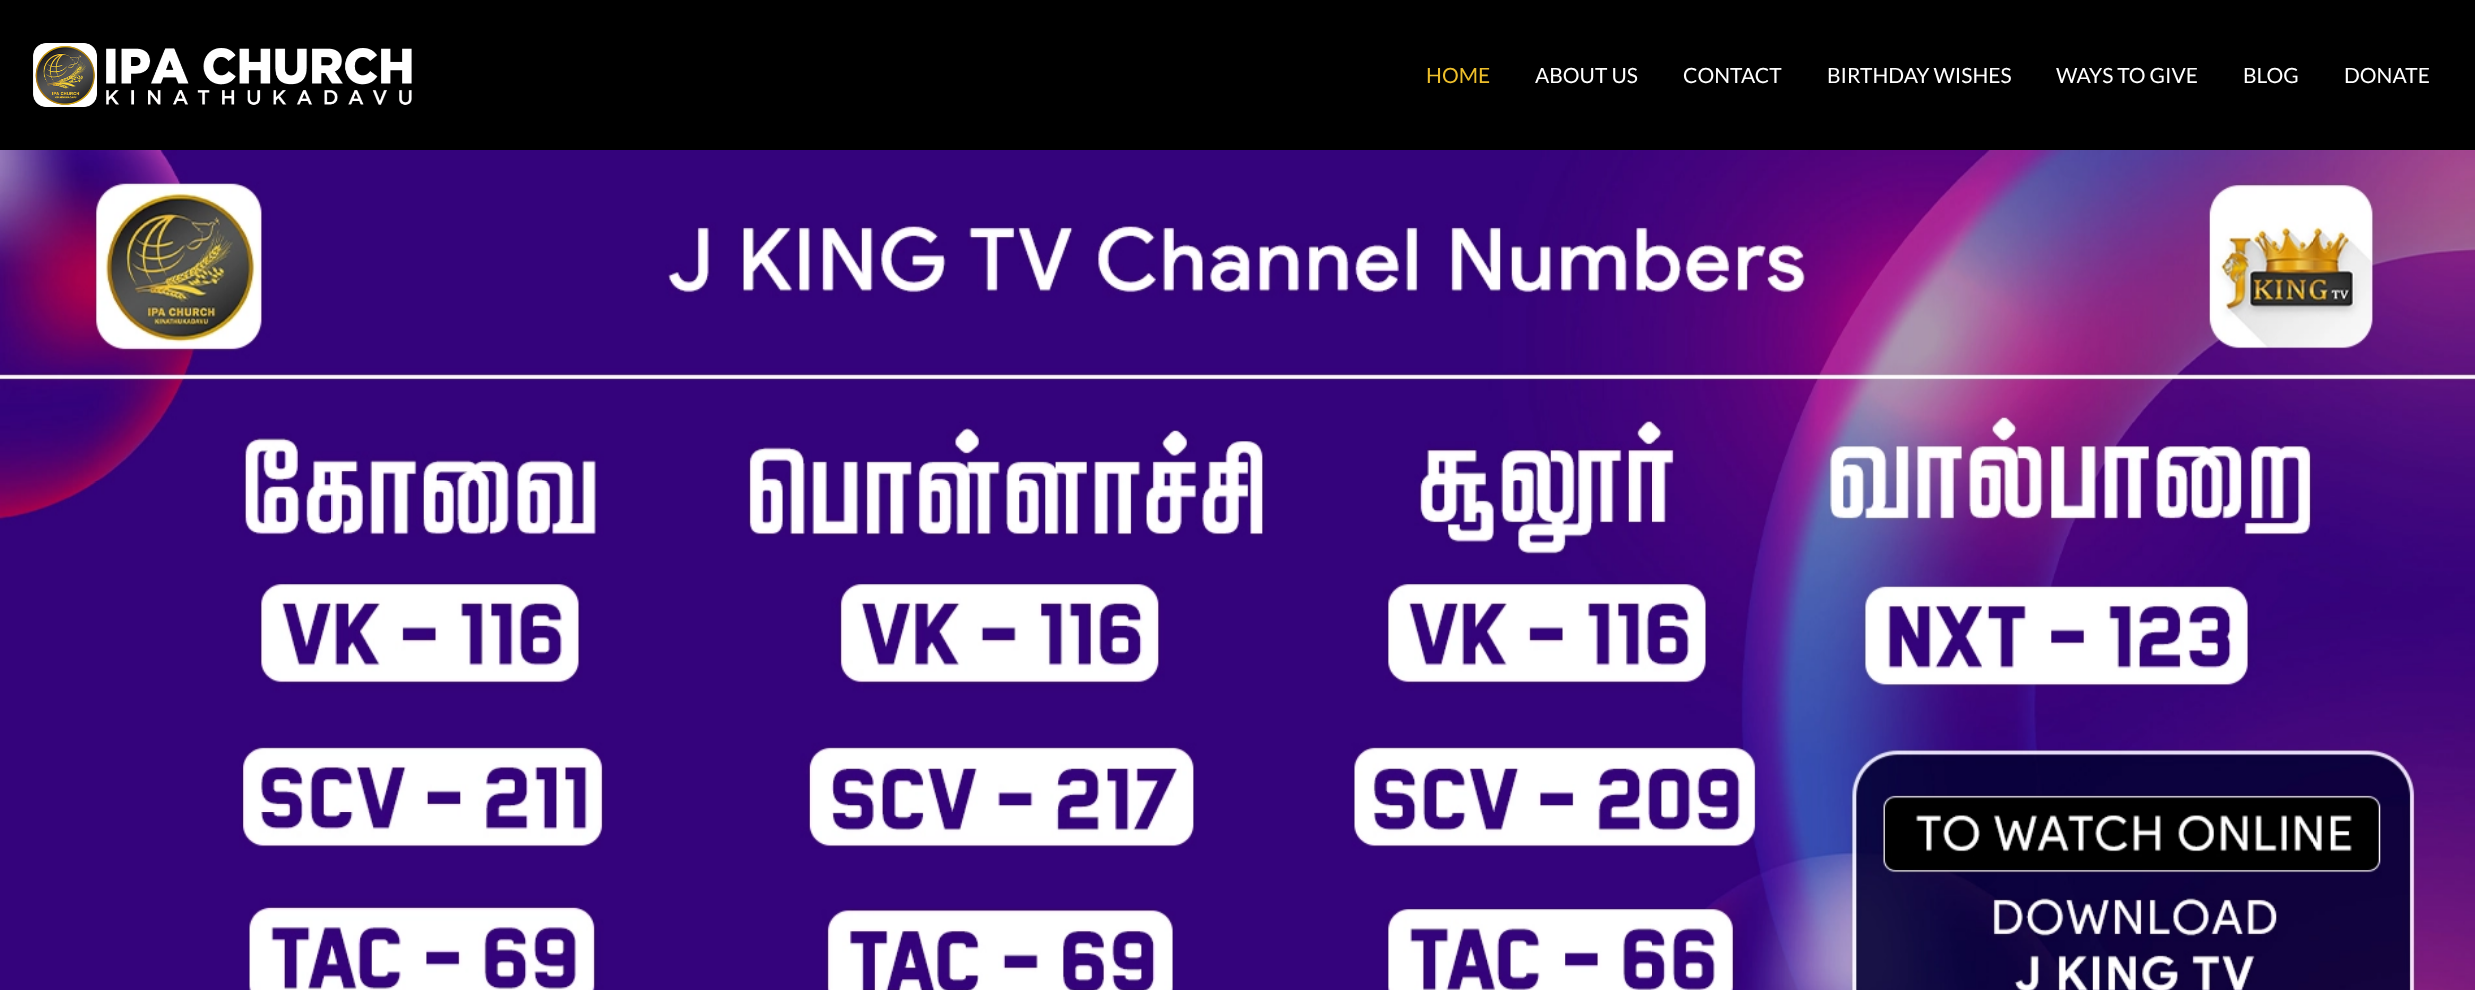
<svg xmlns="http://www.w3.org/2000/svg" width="2475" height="990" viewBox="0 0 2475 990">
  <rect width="100%" height="100%" fill="#fff"/>
  <path d="M0 0h2475v150H0z" fill="#000"/>
  <image x="33" y="43" width="379" height="64" href="img/1.png"/>
  <image x="0" y="150" width="2475" height="840" href="img/2.png"/>
  <text x="1426" y="83" font-family="Lato" font-size="21" fill="#eebf2b">HOME</text>
  <g font-family="Lato" font-size="21" fill="#fff">
    <text x="1535" y="83">ABOUT US</text>
    <text x="1683" y="83">CONTACT</text>
    <text x="1827" y="83">BIRTHDAY WISHES</text>
    <text x="2056" y="83">WAYS TO GIVE</text>
    <text x="2243" y="83">BLOG</text>
    <text x="2344" y="83">DONATE</text>
  </g>
</svg>
